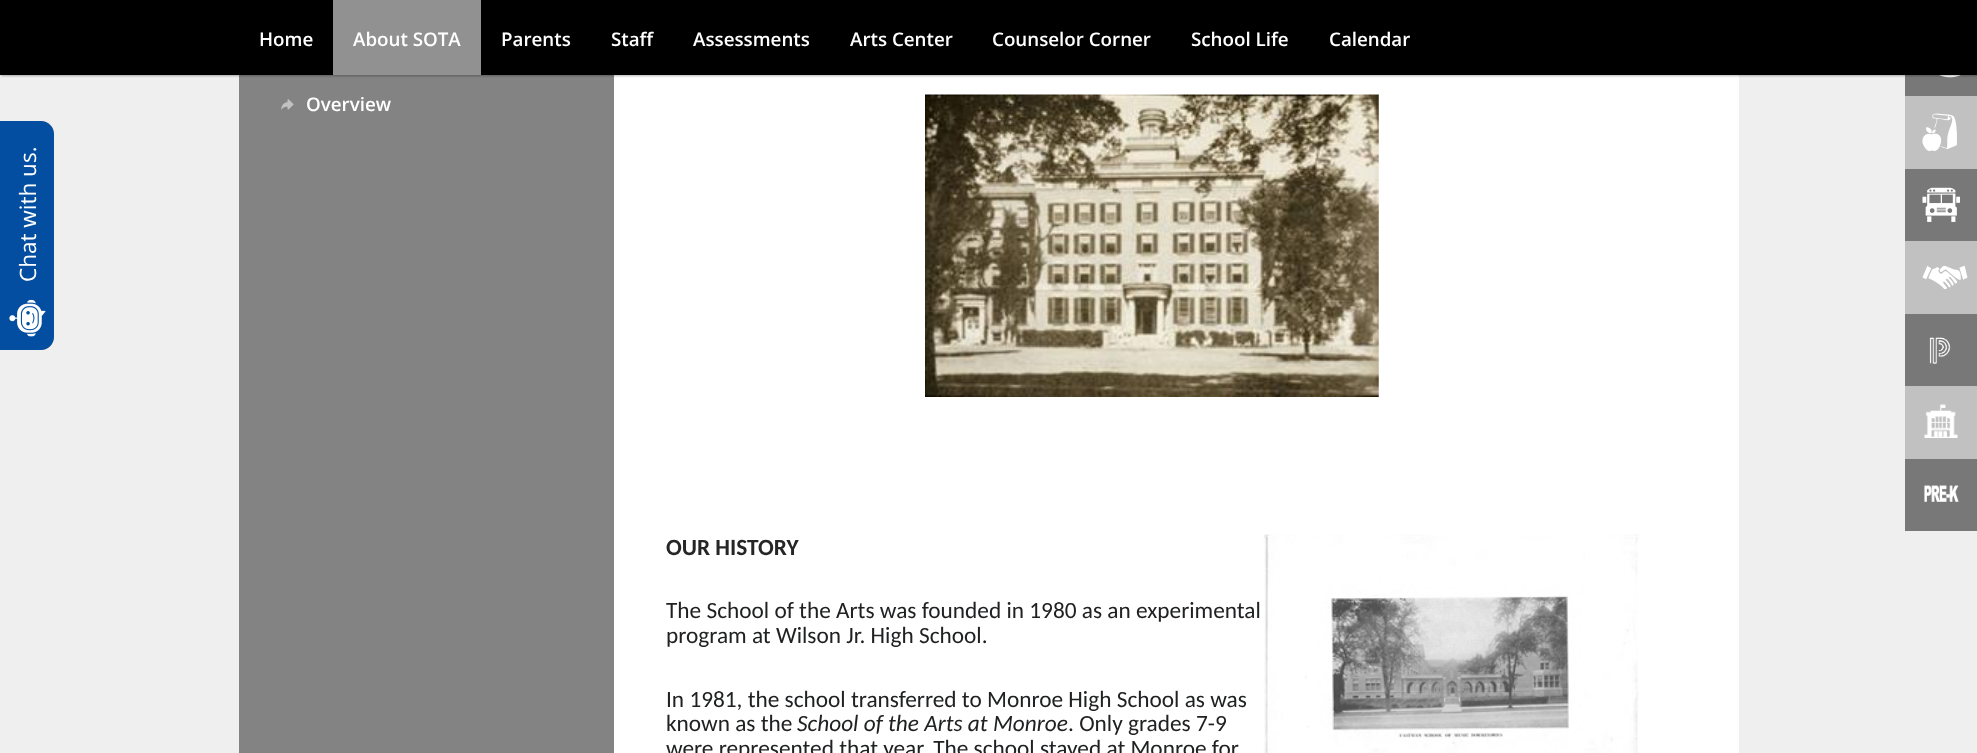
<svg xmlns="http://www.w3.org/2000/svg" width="1977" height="753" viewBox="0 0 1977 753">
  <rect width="100%" height="100%" fill="#efefef"/>
  <rect x="-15" y="121" width="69" height="229" rx="13" fill="#00000038" filter="blur(0.5px)"/>
  <path d="M0 121H41C48 121 54 127 54 134V337C54 344 48 350 41 350H0Z" fill="#034ea1"/>
  <image x="9" y="299" width="37" height="38" href="img/1.png"/>
  <path d="M614 75h1125v678H614z" fill="#fff"/>
  <path d="M239 75h375v678H239z" fill="#838383"/>
  <path d="M1905 75h72v21H1905z" fill="#787878"/>
  <image x="1939" y="75" width="22" height="3" href="img/5.png"/>
  <path d="M1 1h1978v75H1z" fill="#0000004d" filter="blur(1px)"/>
  <path d="M0 0h1977v75H0z" fill="#000"/>
  <path d="M333 0h148v75H333z" fill="#919191"/>
  <image x="281" y="99" width="13" height="11" href="img/2.png"/>
  <image x="925" y="94" width="454" height="303" href="img/3.png"/>
  <image x="1263" y="534" width="376" height="219" href="img/4.png"/>
  <path d="M1905 96h72v73H1905z" fill="#c1c1c1"/>
  <image x="1922" y="113" width="35" height="38" href="img/6.png"/>
  <path d="M1905 169h72v72H1905z" fill="#787878"/>
  <image x="1922" y="187" width="38" height="35" href="img/7.png"/>
  <path d="M1905 241h72v73H1905z" fill="#c1c1c1"/>
  <image x="1922" y="265" width="46" height="24" href="img/8.png"/>
  <path d="M1905 314h72v72H1905z" fill="#787878"/>
  <image x="1929" y="337" width="22" height="27" href="img/9.png"/>
  <path d="M1905 386h72v73H1905z" fill="#c1c1c1"/>
  <image x="1924" y="404" width="34" height="34" href="img/10.png"/>
  <path d="M1905 459h72v72H1905z" fill="#787878"/>
  <image x="1924" y="485" width="35" height="17" href="img/11.png"/>
  <text x="36" y="282" transform="rotate(-90 36 282)" font-family="Open Sans" font-size="22.5" fill="#fff">Chat with us.</text>
  <g font-family="Open Sans" font-size="18.75" font-weight="600" fill="#fff">
    <text x="259" y="46">Home</text>
    <text x="353" y="46">About SOTA</text>
    <text x="501" y="46">Parents</text>
    <text x="611" y="46">Staff</text>
    <text x="693" y="46">Assessments</text>
    <text x="850" y="46">Arts Center</text>
    <text x="992" y="46">Counselor Corner</text>
    <text x="1191" y="46">School Life</text>
    <text x="1329" y="46">Calendar</text>
    <text x="306" y="111">Overview</text>
  </g>
  <text x="666" y="555" font-family="Carlito" font-size="23.3" font-weight="bold" fill="#262627">OUR HISTORY</text>
  <g font-family="Carlito" font-size="23.3" fill="#202122">
    <text x="666" y="618">The School of the Arts was founded in 1980 as an experimental</text>
    <text x="666" y="643">program at Wilson Jr. High School.</text>
    <text x="666" y="707">In 1981, the school transferred to Monroe High School as was</text>
    <text x="666" y="731">known as the</text>
  </g>
  <text x="797" y="731" font-family="Carlito" font-size="23.3" font-style="italic" fill="#202122">School of the Arts at Monroe</text>
  <g font-family="Carlito" font-size="23.3" fill="#202122">
    <text x="1068" y="731">. Only grades 7-9</text>
    <text x="666" y="756">were represented that year. The school stayed at Monroe for</text>
  </g>
</svg>
